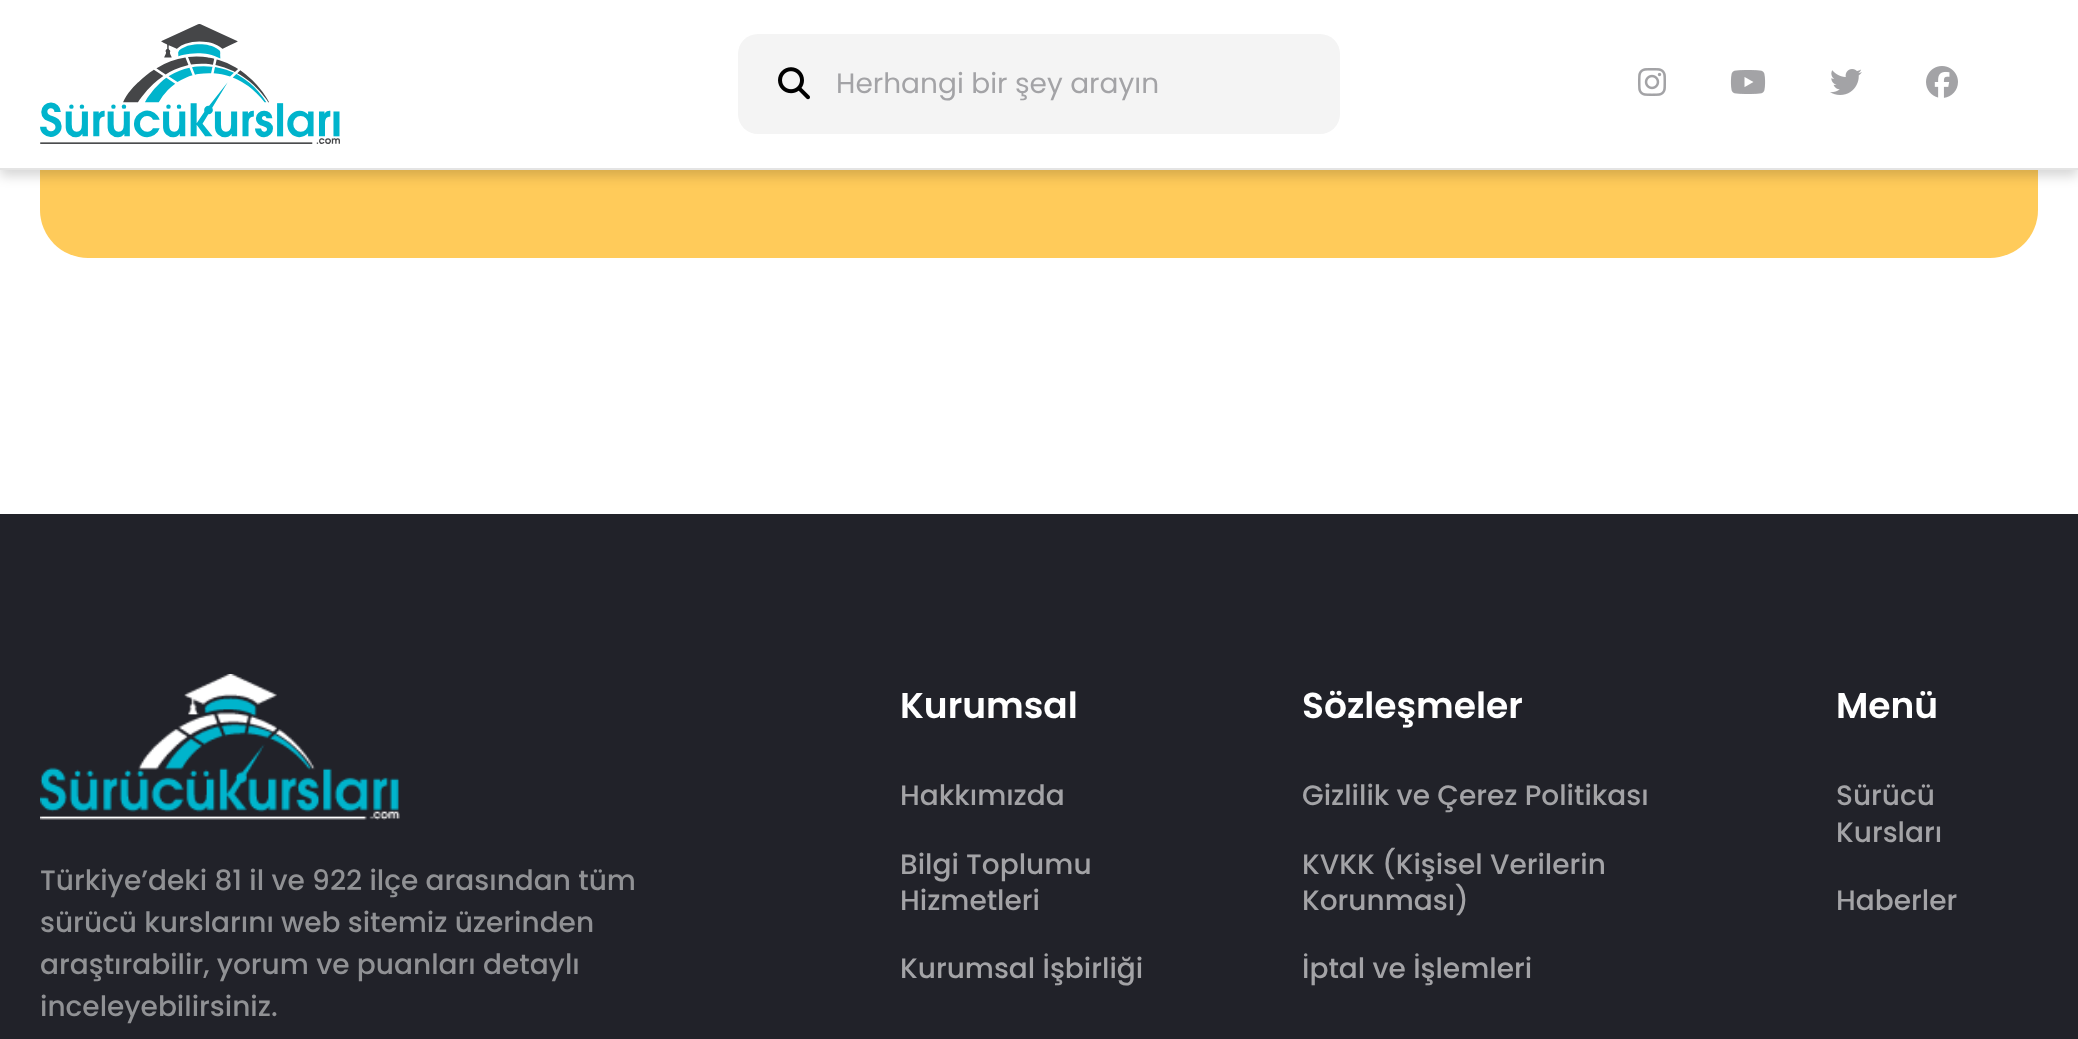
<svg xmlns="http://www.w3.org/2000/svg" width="2078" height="1039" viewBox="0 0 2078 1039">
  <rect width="100%" height="100%" fill="#fff"/>
  <rect x="40" y="-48" width="1998" height="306" rx="48" fill="#ffcb5a"/>
  <path d="M0 6h2078v170H0z" fill="#00000029" filter="blur(6px)"/>
  <path d="M0 0h2078v168H0z" fill="#fff"/>
  <path d="M0 168h2078v2H0z" fill="#e4e4e4"/>
  <image x="40" y="24" width="300" height="120" href="img/1.png"/>
  <rect x="738" y="34" width="602" height="100" rx="20" fill="#f4f4f4"/>
  <image x="778" y="67" width="32" height="33" href="img/2.png"/>
  <image x="1638" y="68" width="28" height="28" href="img/3.png"/>
  <image x="1730" y="70" width="36" height="24" href="img/4.png"/>
  <image x="1830" y="69" width="32" height="26" href="img/5.png"/>
  <image x="1926" y="66" width="32" height="32" href="img/6.png"/>
  <path d="M0 514h2078v525H0z" fill="#212229"/>
  <image x="40" y="674" width="360" height="146" href="img/7.png"/>
  <text x="836" y="93" font-family="Poppins" font-size="28" fill="#a3a3a6">Herhangi bir şey arayın</text>
  <g font-family="Poppins" font-size="28" font-weight="500" fill="#909194">
    <text x="40" y="890">Türkiye’deki 81 il ve 922 ilçe arasından tüm</text>
    <text x="40" y="932">sürücü kurslarını web sitemiz üzerinden</text>
    <text x="40" y="974">araştırabilir, yorum ve puanları detaylı</text>
    <text x="40" y="1016">inceleyebilirsiniz.</text>
  </g>
  <text x="900" y="718" font-family="Poppins" font-size="36" font-weight="600" fill="#fff">Kurumsal</text>
  <g font-family="Poppins" font-size="28" font-weight="500" fill="#a3a3a6">
    <text x="900" y="805">Hakkımızda</text>
    <text x="900" y="874">Bilgi Toplumu</text>
    <text x="900" y="910">Hizmetleri</text>
    <text x="900" y="978">Kurumsal İşbirliği</text>
  </g>
  <text x="1302" y="718" font-family="Poppins" font-size="36" font-weight="600" fill="#fff">Sözleşmeler</text>
  <g font-family="Poppins" font-size="28" font-weight="500" fill="#a3a3a6">
    <text x="1302" y="805">Gizlilik ve Çerez Politikası</text>
    <text x="1302" y="874">KVKK (Kişisel Verilerin</text>
    <text x="1302" y="910">Korunması)</text>
    <text x="1302" y="978">İptal ve İşlemleri</text>
  </g>
  <text x="1836" y="718" font-family="Poppins" font-size="36" font-weight="600" fill="#fff">Menü</text>
  <g font-family="Poppins" font-size="28" font-weight="500" fill="#a3a3a6">
    <text x="1836" y="805">Sürücü</text>
    <text x="1836" y="842">Kursları</text>
    <text x="1836" y="910">Haberler</text>
  </g>
</svg>
